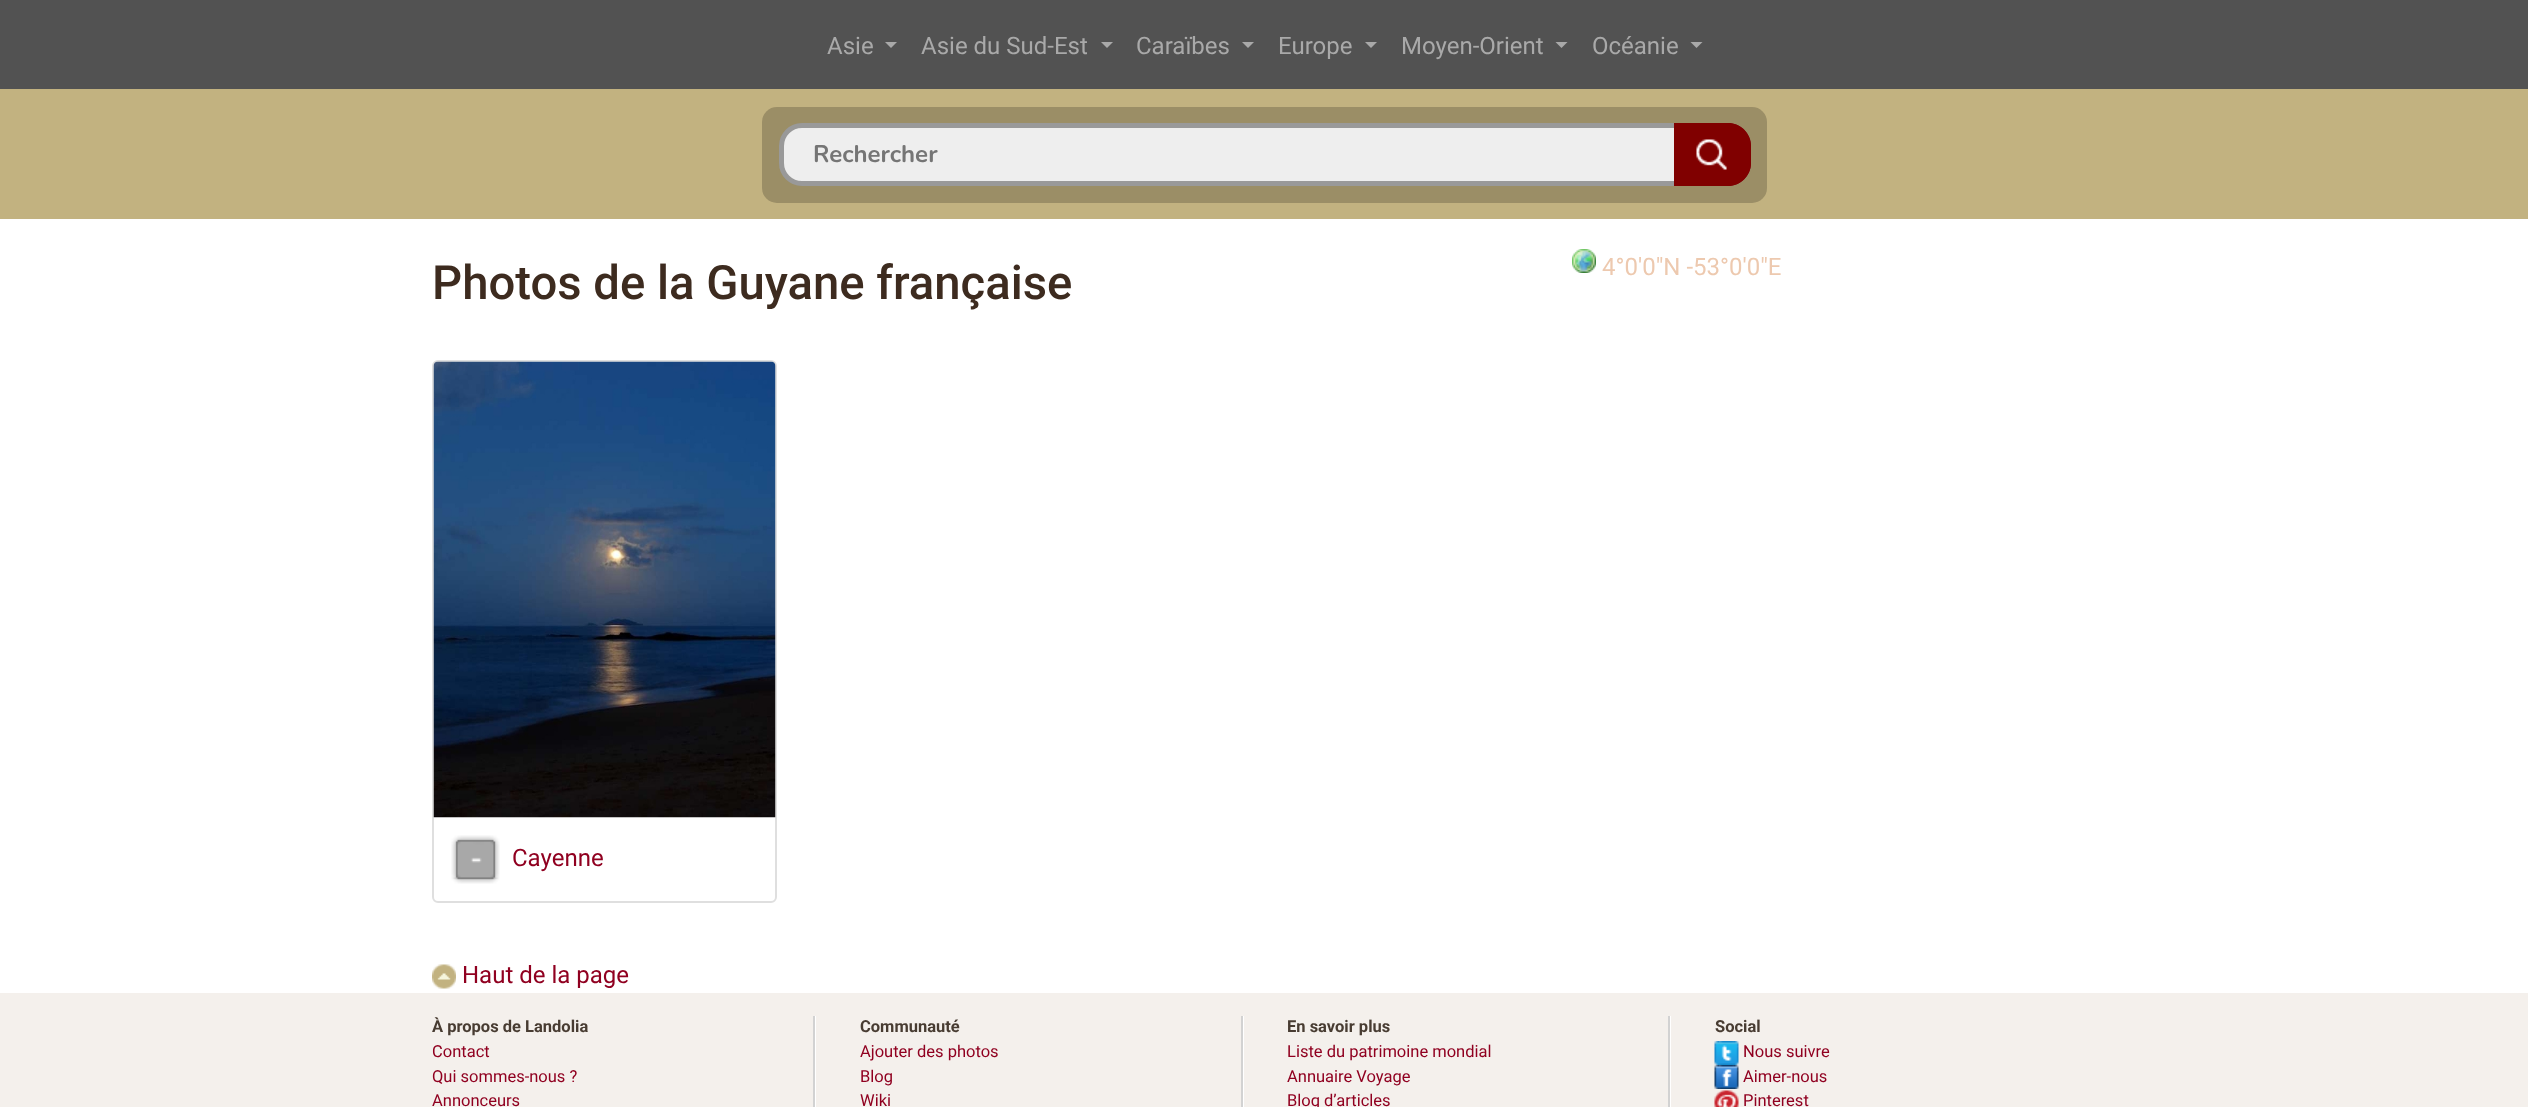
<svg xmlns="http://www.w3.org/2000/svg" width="2528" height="1107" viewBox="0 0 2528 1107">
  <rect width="100%" height="100%" fill="#fff"/>
  <path d="M0 0h2528v89H0z" fill="#525252"/>
  <path d="M885 42H897L891 48Z" fill="#a9a9a9"/>
  <path d="M1101 42H1113L1107 48Z" fill="#a9a9a9"/>
  <path d="M1242 42H1254L1248 48Z" fill="#a9a9a9"/>
  <path d="M1365 42H1377L1371 48Z" fill="#a9a9a9"/>
  <path d="M1555.5 42H1567.5L1561.5 48Z" fill="#a9a9a9"/>
  <path d="M1690.5 42H1702.5L1696.5 48Z" fill="#a9a9a9"/>
  <path d="M0 89h2528v130H0z" fill="#c2b280"/>
  <rect x="762" y="107" width="1005" height="96" rx="15" fill="#9b8e66"/>
  <rect x="781.5" y="125.5" width="967" height="58" rx="20.5" fill="#eee" stroke="#999" stroke-width="5"/>
  <path d="M1674 123H1728C1740.5 123 1751 133.5 1751 146V163C1751 175.5 1740.5 186 1728 186H1674Z" fill="#800000"/>
  <image x="1696" y="139" width="31" height="31" href="img/1.png"/>
  <path d="M1675 124H1728C1740 124 1750 134 1750 146V163C1750 175 1740 185 1728 185H1675Z" fill="none" stroke="#800000" stroke-width="2"/>
  <rect x="433" y="361" width="343" height="541" rx="5" fill="none" stroke="#dfdfdf" stroke-width="2"/>
  <image x="433" y="361" width="343" height="457" href="img/2.png"/>
  <image x="451" y="835" width="49" height="49" href="img/3.png"/>
  <image x="1572" y="249" width="24" height="24" href="img/4.png"/>
  <image x="432" y="964" width="24" height="25" href="img/5.png"/>
  <path d="M0 993h2528v114H0z" fill="#f4f0ec"/>
  <path d="M434 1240V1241H816V1016H814V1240Z" fill="#fff"/>
  <path d="M813 1016h2v91H813z" fill="#d2d2d2"/>
  <path d="M861 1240V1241H1244V1016H1242V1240Z" fill="#fff"/>
  <path d="M1241 1016h2v91H1241z" fill="#d2d2d2"/>
  <path d="M1289 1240V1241H1671V1016H1670V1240Z" fill="#fff"/>
  <path d="M1668 1016h2v91H1668z" fill="#d2d2d2"/>
  <image x="1714" y="1041" width="25" height="24" href="img/6.png"/>
  <image x="1714" y="1065" width="25" height="24" href="img/7.png"/>
  <image x="1714" y="1090" width="25" height="17" href="img/8.png"/>
  <g font-family="Roboto" font-size="24" fill="#a9a9a9">
    <text x="827" y="54">Asie</text>
    <text x="921" y="54">Asie du Sud-Est</text>
    <text x="1136" y="54">Caraïbes</text>
    <text x="1278" y="54">Europe</text>
    <text x="1401" y="54">Moyen-Orient</text>
    <text x="1592" y="54">Océanie</text>
  </g>
  <text x="813" y="162" font-family="Nunito" font-size="24" font-weight="bold" fill="#757575">Rechercher</text>
  <text x="432" y="299" font-family="Roboto" font-size="47.25" font-weight="500" fill="#3d2b1f">Photos de la Guyane française</text>
  <text x="512" y="866" font-family="Roboto" font-size="24" fill="#900020">Cayenne</text>
  <text x="1602" y="275" font-family="Roboto" font-size="24" fill="#edc9af">4°0'0"N -53°0'0"E</text>
  <text x="462" y="983" font-family="Roboto" font-size="24" fill="#900020">Haut de la page</text>
  <text x="432" y="1032" font-family="Roboto" font-size="16.5" font-weight="bold" fill="#483c32">À propos de Landolia</text>
  <g font-family="Roboto" font-size="16.5" fill="#900020">
    <text x="432" y="1057">Contact</text>
    <text x="432" y="1082">Qui sommes-nous ?</text>
    <text x="432" y="1106">Annonceurs</text>
  </g>
  <text x="860" y="1032" font-family="Roboto" font-size="16.5" font-weight="bold" fill="#483c32">Communauté</text>
  <g font-family="Roboto" font-size="16.5" fill="#900020">
    <text x="860" y="1057">Ajouter des photos</text>
    <text x="860" y="1082">Blog</text>
    <text x="860" y="1106">Wiki</text>
  </g>
  <text x="1287" y="1032" font-family="Roboto" font-size="16.5" font-weight="bold" fill="#483c32">En savoir plus</text>
  <g font-family="Roboto" font-size="16.5" fill="#900020">
    <text x="1287" y="1057">Liste du patrimoine mondial</text>
    <text x="1287" y="1082">Annuaire Voyage</text>
    <text x="1287" y="1106">Blog d’articles</text>
  </g>
  <text x="1715" y="1032" font-family="Roboto" font-size="16.5" font-weight="bold" fill="#483c32">Social</text>
  <g font-family="Roboto" font-size="16.5" fill="#900020">
    <text x="1743" y="1057">Nous suivre</text>
    <text x="1743" y="1082">Aimer-nous</text>
    <text x="1743" y="1106">Pinterest</text>
  </g>
</svg>
